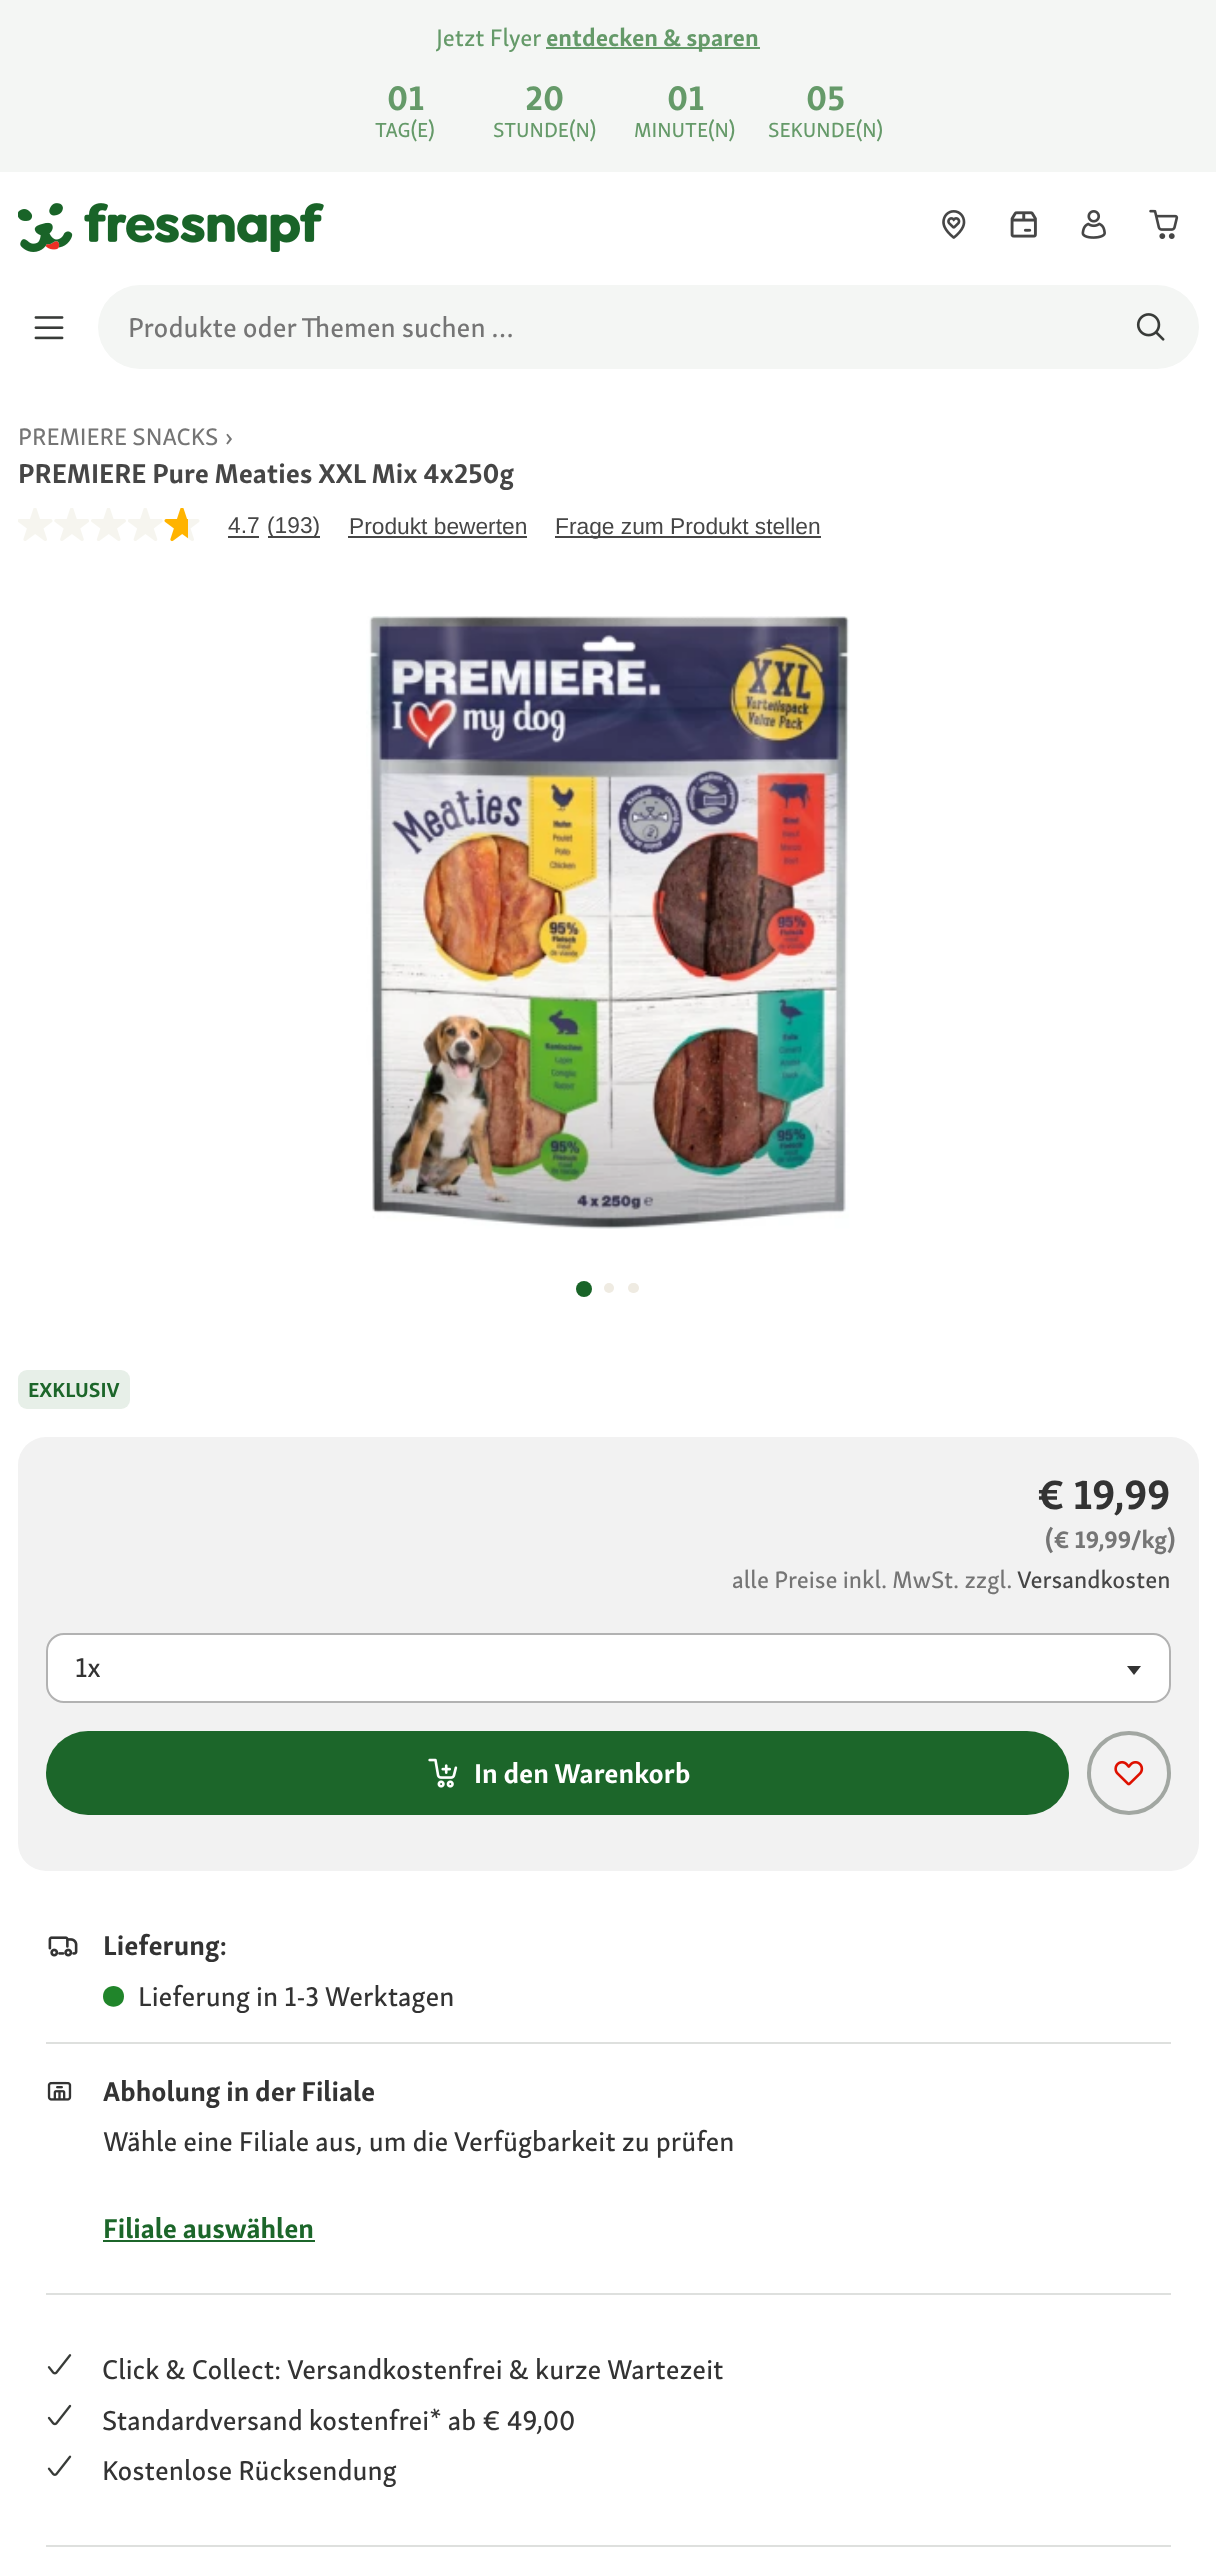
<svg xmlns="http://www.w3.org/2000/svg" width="1216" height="2566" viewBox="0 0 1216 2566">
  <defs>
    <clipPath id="clip1"><path d="M436 18h324v38H436z"/></clipPath>
  </defs>
  <rect width="100%" height="100%" fill="#fff"/>
  <path d="M0 0h1216v172H0z" fill="#f4f6f4"/>
  <path d="M546 47h214v2H546z" fill="#659a69"/>
  <image x="18" y="203" width="306" height="49" href="img/1.png"/>
  <image x="942" y="210" width="24" height="29" href="img/2.png"/>
  <image x="1010" y="211" width="27" height="27" href="img/3.png"/>
  <image x="1081" y="210" width="25" height="29" href="img/4.png"/>
  <image x="1149" y="209" width="30" height="30" href="img/5.png"/>
  <image x="34" y="316" width="30" height="24" href="img/6.png"/>
  <rect x="98" y="285" width="1101" height="84" rx="42" fill="#f4f6f4"/>
  <image x="1136" y="313" width="29" height="28" href="img/7.png"/>
  <image x="18" y="508" width="35" height="33" href="img/8.png"/>
  <image x="54" y="508" width="35" height="33" href="img/9.png"/>
  <image x="91" y="508" width="35" height="33" href="img/10.png"/>
  <image x="128" y="508" width="35" height="33" href="img/11.png"/>
  <image x="164" y="508" width="36" height="34" href="img/12.png"/>
  <path d="M228 536h31v2H228z" fill="#464646"/>
  <path d="M268 536h52v2H268z" fill="#464646"/>
  <path d="M348 536h179v2H348z" fill="#464646"/>
  <path d="M555 536h266v2H555z" fill="#464646"/>
  <image x="366" y="616" width="484" height="613" href="img/13.png"/>
  <circle cx="584" cy="1289" r="8" fill="#196428"/>
  <circle cx="609" cy="1288" r="5" fill="#efebe2"/>
  <rect x="628" y="1283" width="11" height="10" rx="5" fill="#efebe2"/>
  <rect x="18" y="1370" width="112" height="39" rx="9" fill="#e7efe8"/>
  <rect x="18" y="1437" width="1181" height="434" rx="28" fill="#f2f2f2"/>
  <rect x="47" y="1634" width="1123" height="68" rx="17" fill="#fff" stroke="#b2b2b2" stroke-width="2"/>
  <path d="M1127 1666H1141L1134 1675Z" fill="#333"/>
  <rect x="46" y="1731" width="1023" height="84" rx="42" fill="#1c662a"/>
  <image x="428" y="1758" width="30" height="30" href="img/14.png"/>
  <circle cx="1129" cy="1773" r="40" fill="none" stroke="#a2a7a2" stroke-width="4"/>
  <image x="1114" y="1760" width="30" height="26" href="img/15.png"/>
  <path d="M46 2042h1125v2H46z" fill="#dee0de"/>
  <image x="48" y="1936" width="30" height="21" href="img/16.png"/>
  <path d="M124 1996.5C124 2010 103 2010 103 1996.5C103 1982.5 124 1982.5 124 1996.5Z" fill="#20852a"/>
  <path d="M46 2293h1125v2H46z" fill="#dee0de"/>
  <image x="47" y="2081" width="25" height="20" href="img/17.png"/>
  <path d="M103 2240h212v2H103z" fill="#1c662a"/>
  <path d="M46 2545h1125v2H46z" fill="#dee0de"/>
  <image x="47" y="2354" width="25" height="21" href="img/18.png"/>
  <image x="47" y="2404" width="25" height="22" href="img/19.png"/>
  <image x="47" y="2455" width="25" height="21" href="img/20.png"/>
  <g clip-path="url(#clip1)">
    <text x="436" y="46" font-family="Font" font-size="24.5" font-weight="500" fill="#659a69">Jetzt Flyer</text>
  </g>
  <text x="546" y="46" font-family="Font" font-size="24.5" font-weight="bold" fill="#659a69">entdecken &amp; sparen</text>
  <text x="387" y="110" font-family="Font" font-size="35" font-weight="bold" fill="#659a69">01</text>
  <text x="375" y="137" font-family="Font" font-size="21" font-weight="500" fill="#659a69">TAG(E)</text>
  <text x="525" y="110" font-family="Font" font-size="35" font-weight="bold" fill="#659a69">20</text>
  <text x="493" y="137" font-family="Font" font-size="21" font-weight="500" fill="#659a69">STUNDE(N)</text>
  <text x="667" y="110" font-family="Font" font-size="35" font-weight="bold" fill="#659a69">01</text>
  <text x="634" y="137" font-family="Font" font-size="21" font-weight="500" fill="#659a69">MINUTE(N)</text>
  <text x="806" y="110" font-family="Font" font-size="35" font-weight="bold" fill="#659a69">05</text>
  <text x="768" y="137" font-family="Font" font-size="21" font-weight="500" fill="#659a69">SEKUNDE(N)</text>
  <text x="128" y="337" font-family="Font" font-size="28" font-weight="500" fill="#757575">Produkte oder Themen suchen …</text>
  <g font-family="Font" font-size="24.5" font-weight="500" fill="#757575">
    <text x="18" y="445">PREMIERE SNACKS</text>
    <text x="225" y="445">›</text>
  </g>
  <text x="18" y="483" font-family="Font" font-size="28" font-weight="bold" fill="#464646">PREMIERE Pure Meaties XXL Mix 4x250g</text>
  <g font-family="Liberation Sans" font-size="22.75" fill="#464646">
    <text x="228" y="533">4.7</text>
    <text x="267" y="533">(193)</text>
    <text x="349" y="534">Produkt bewerten</text>
    <text x="555" y="534">Frage zum Produkt stellen</text>
  </g>
  <text x="28" y="1397" font-family="Font" font-size="21" font-weight="bold" fill="#1c662a">EXKLUSIV</text>
  <text x="1037" y="1509" font-family="Font" font-size="42" font-weight="bold" fill="#333">€ 19,99</text>
  <text x="1045" y="1548" font-family="Font" font-size="24.5" font-weight="bold" fill="#757575">(€ 19,99/kg)</text>
  <text x="732" y="1588" font-family="Font" font-size="24.5" font-weight="500" fill="#757575">alle Preise inkl. MwSt. zzgl.</text>
  <text x="1017" y="1588" font-family="Font" font-size="24.5" font-weight="500" fill="#464646">Versandkosten</text>
  <text x="75" y="1677" font-family="Font" font-size="28" font-weight="500" fill="#333">1x</text>
  <text x="474" y="1783" font-family="Font" font-size="28" font-weight="bold" fill="#fff">In den Warenkorb</text>
  <text x="103" y="1955" font-family="Font" font-size="28" font-weight="bold" fill="#333">Lieferung:</text>
  <text x="138" y="2006" font-family="Font" font-size="28" font-weight="500" fill="#333">Lieferung in 1-3 Werktagen</text>
  <text x="103" y="2101" font-family="Font" font-size="28" font-weight="bold" fill="#333">Abholung in der Filiale</text>
  <text x="103" y="2151" font-family="Font" font-size="28" font-weight="500" fill="#333">Wähle eine Filiale aus, um die Verfügbarkeit zu prüfen</text>
  <text x="103" y="2238" font-family="Font" font-size="28" font-weight="bold" fill="#1c662a">Filiale auswählen</text>
  <g font-family="Font" font-size="28" font-weight="500" fill="#333">
    <text x="102" y="2379">Click &amp; Collect: Versandkostenfrei &amp; kurze Wartezeit</text>
    <text x="102" y="2430">Standardversand kostenfrei* ab € 49,00</text>
    <text x="102" y="2480">Kostenlose Rücksendung</text>
  </g>
</svg>
